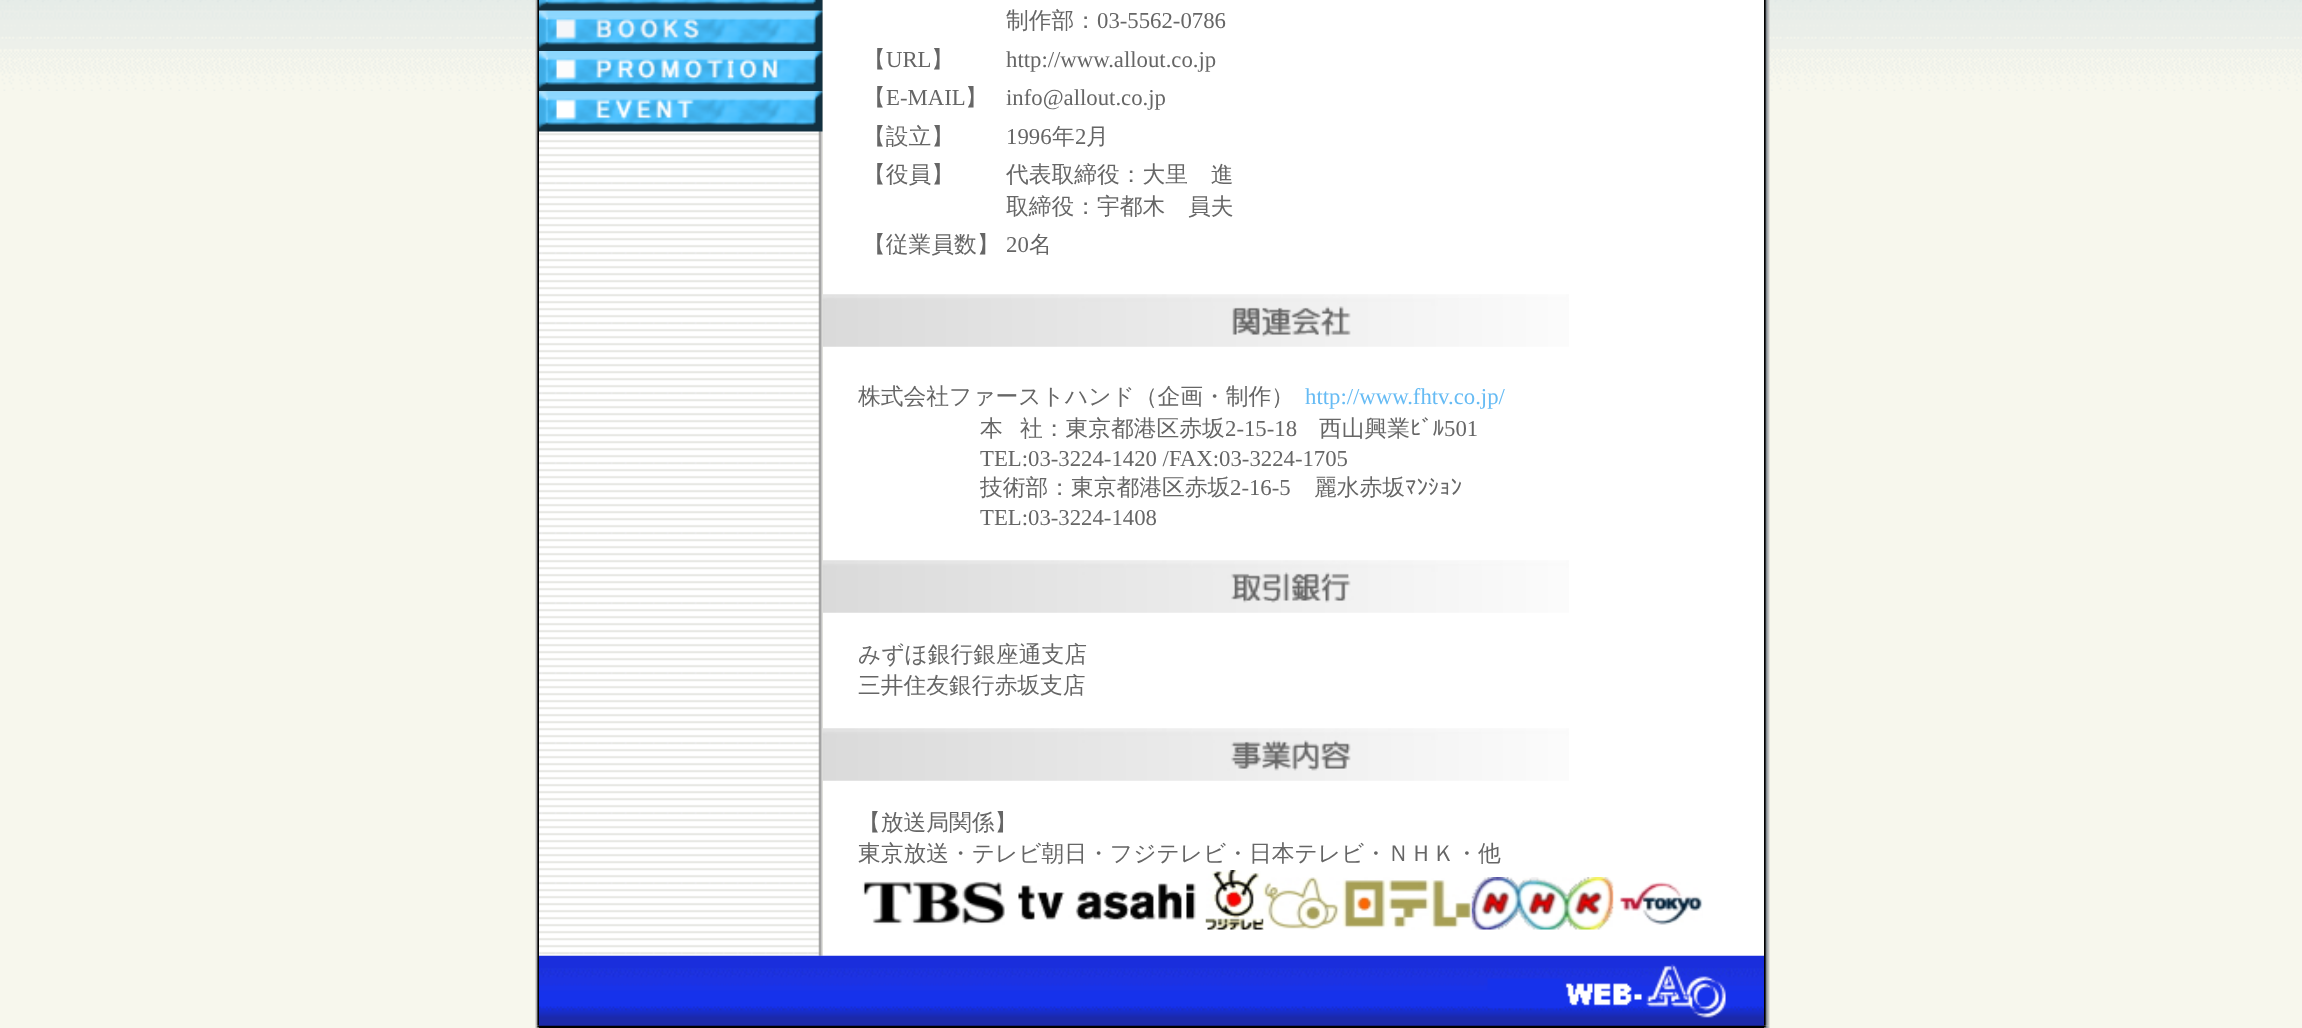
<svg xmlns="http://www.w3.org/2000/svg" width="2302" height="1028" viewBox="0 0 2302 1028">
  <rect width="100%" height="100%" fill="#f7f7ed"/>
  <image x="0" y="0" width="2302" height="91" href="img/1.png"/>
  <image x="535" y="0" width="4" height="1026" href="img/2.png"/>
  <image x="1764" y="0" width="6" height="1026" href="img/3.png"/>
  <image x="539" y="0" width="284" height="956" href="img/4.png"/>
  <image x="539" y="0" width="284" height="11" href="img/5.png"/>
  <image x="539" y="10" width="284" height="41" href="img/6.png"/>
  <image x="539" y="51" width="284" height="41" href="img/7.png"/>
  <image x="539" y="91" width="284" height="41" href="img/8.png"/>
  <path d="M823 0h941v956H823z" fill="#fff"/>
  <image x="822" y="294" width="747" height="53" href="img/9.png"/>
  <image x="822" y="560" width="747" height="53" href="img/10.png"/>
  <image x="822" y="728" width="747" height="53" href="img/11.png"/>
  <image x="862" y="881" width="143" height="44" href="img/12.png"/>
  <image x="1018" y="883" width="178" height="37" href="img/13.png"/>
  <image x="1205" y="870" width="59" height="60" href="img/14.png"/>
  <image x="1263" y="877" width="209" height="53" href="img/15.png"/>
  <image x="1471" y="877" width="143" height="53" href="img/16.png"/>
  <image x="1613" y="882" width="90" height="43" href="img/17.png"/>
  <path d="M539 1025h1225v3H539z" fill="#000"/>
  <image x="539" y="955" width="1225" height="71" href="img/18.png"/>
  <image x="535" y="1025" width="4" height="3" href="img/19.png"/>
  <image x="1764" y="1025" width="6" height="3" href="img/20.png"/>
  <text x="1006" y="28" font-family="WenQuanYi Zen Hei" font-size="22.75" font-weight="500" fill="#666">制作部：</text>
  <text x="1097" y="28" font-family="Liberation Serif" font-size="22.75" fill="#666">03-5562-0786</text>
  <text x="863" y="67" font-family="WenQuanYi Zen Hei" font-size="22.75" font-weight="500" fill="#666">【</text>
  <text x="886" y="67" font-family="Liberation Serif" font-size="22.75" fill="#666">URL</text>
  <text x="931" y="67" font-family="WenQuanYi Zen Hei" font-size="22.75" font-weight="500" fill="#666">】</text>
  <text x="1006" y="67" font-family="Liberation Serif" font-size="22.75" fill="#666">http://www.allout.co.jp</text>
  <text x="863" y="105" font-family="WenQuanYi Zen Hei" font-size="22.75" font-weight="500" fill="#666">【</text>
  <text x="886" y="105" font-family="Liberation Serif" font-size="22.75" fill="#666">E-MAIL</text>
  <text x="965" y="105" font-family="WenQuanYi Zen Hei" font-size="22.75" font-weight="500" fill="#666">】</text>
  <text x="1006" y="105" font-family="Liberation Serif" font-size="22.75" fill="#666">info@allout.co.jp</text>
  <text x="863" y="144" font-family="WenQuanYi Zen Hei" font-size="22.75" font-weight="500" fill="#666">【設立】</text>
  <text x="1006" y="144" font-family="Liberation Serif" font-size="22.75" fill="#666">1996</text>
  <text x="1052" y="144" font-family="WenQuanYi Zen Hei" font-size="22.75" font-weight="500" fill="#666">年</text>
  <text x="1075" y="144" font-family="Liberation Serif" font-size="22.75" fill="#666">2</text>
  <g font-family="WenQuanYi Zen Hei" font-size="22.75" font-weight="500" fill="#666">
    <text x="1086" y="144">月</text>
    <text x="863" y="182">【役員】</text>
    <text x="1006" y="182">代表取締役：大里　進</text>
    <text x="1006" y="214">取締役：宇都木　員夫</text>
    <text x="863" y="252">【従業員数】</text>
  </g>
  <text x="1006" y="252" font-family="Liberation Serif" font-size="22.75" fill="#666">20</text>
  <g font-family="WenQuanYi Zen Hei" font-size="22.75" font-weight="500" fill="#666">
    <text x="1029" y="252">名</text>
    <text x="858" y="404">株式会社ファーストハンド（企画・制作）</text>
  </g>
  <text x="1305" y="404" font-family="Liberation Serif" font-size="22.75" fill="#66bbf4">http://www.fhtv.co.jp/</text>
  <g font-family="WenQuanYi Zen Hei" font-size="22.75" font-weight="500" fill="#666">
    <text x="980" y="436">本</text>
    <text x="1020" y="436">社：東京都港区赤坂</text>
  </g>
  <text x="1225" y="436" font-family="Liberation Serif" font-size="22.75" fill="#666">2-15-18</text>
  <text x="1319" y="436" font-family="WenQuanYi Zen Hei" font-size="22.75" font-weight="500" fill="#666">西山興業</text>
  <text x="1410" y="436" font-family="IPAPGothic" font-size="22.75" fill="#666">ﾋﾞﾙ</text>
  <g font-family="Liberation Serif" font-size="22.75" fill="#666">
    <text x="1444" y="436">501</text>
    <text x="980" y="466">TEL:03-3224-1420 /FAX:03-3224-1705</text>
  </g>
  <text x="980" y="495" font-family="WenQuanYi Zen Hei" font-size="22.75" font-weight="500" fill="#666">技術部：東京都港区赤坂</text>
  <text x="1230" y="495" font-family="Liberation Serif" font-size="22.75" fill="#666">2-16-5</text>
  <text x="1314" y="495" font-family="WenQuanYi Zen Hei" font-size="22.75" font-weight="500" fill="#666">麗水赤坂</text>
  <text x="1405" y="495" font-family="IPAPGothic" font-size="22.75" fill="#666">ﾏﾝｼｮﾝ</text>
  <text x="980" y="525" font-family="Liberation Serif" font-size="22.75" fill="#666">TEL:03-3224-1408</text>
  <g font-family="WenQuanYi Zen Hei" font-size="22.75" font-weight="500" fill="#666">
    <text x="858" y="662">みずほ銀行銀座通支店</text>
    <text x="858" y="693">三井住友銀行赤坂支店</text>
    <text x="858" y="830">【放送局関係】</text>
    <text x="858" y="861">東京放送・テレビ朝日・フジテレビ・日本テレビ・ＮＨＫ・他</text>
  </g>
</svg>
